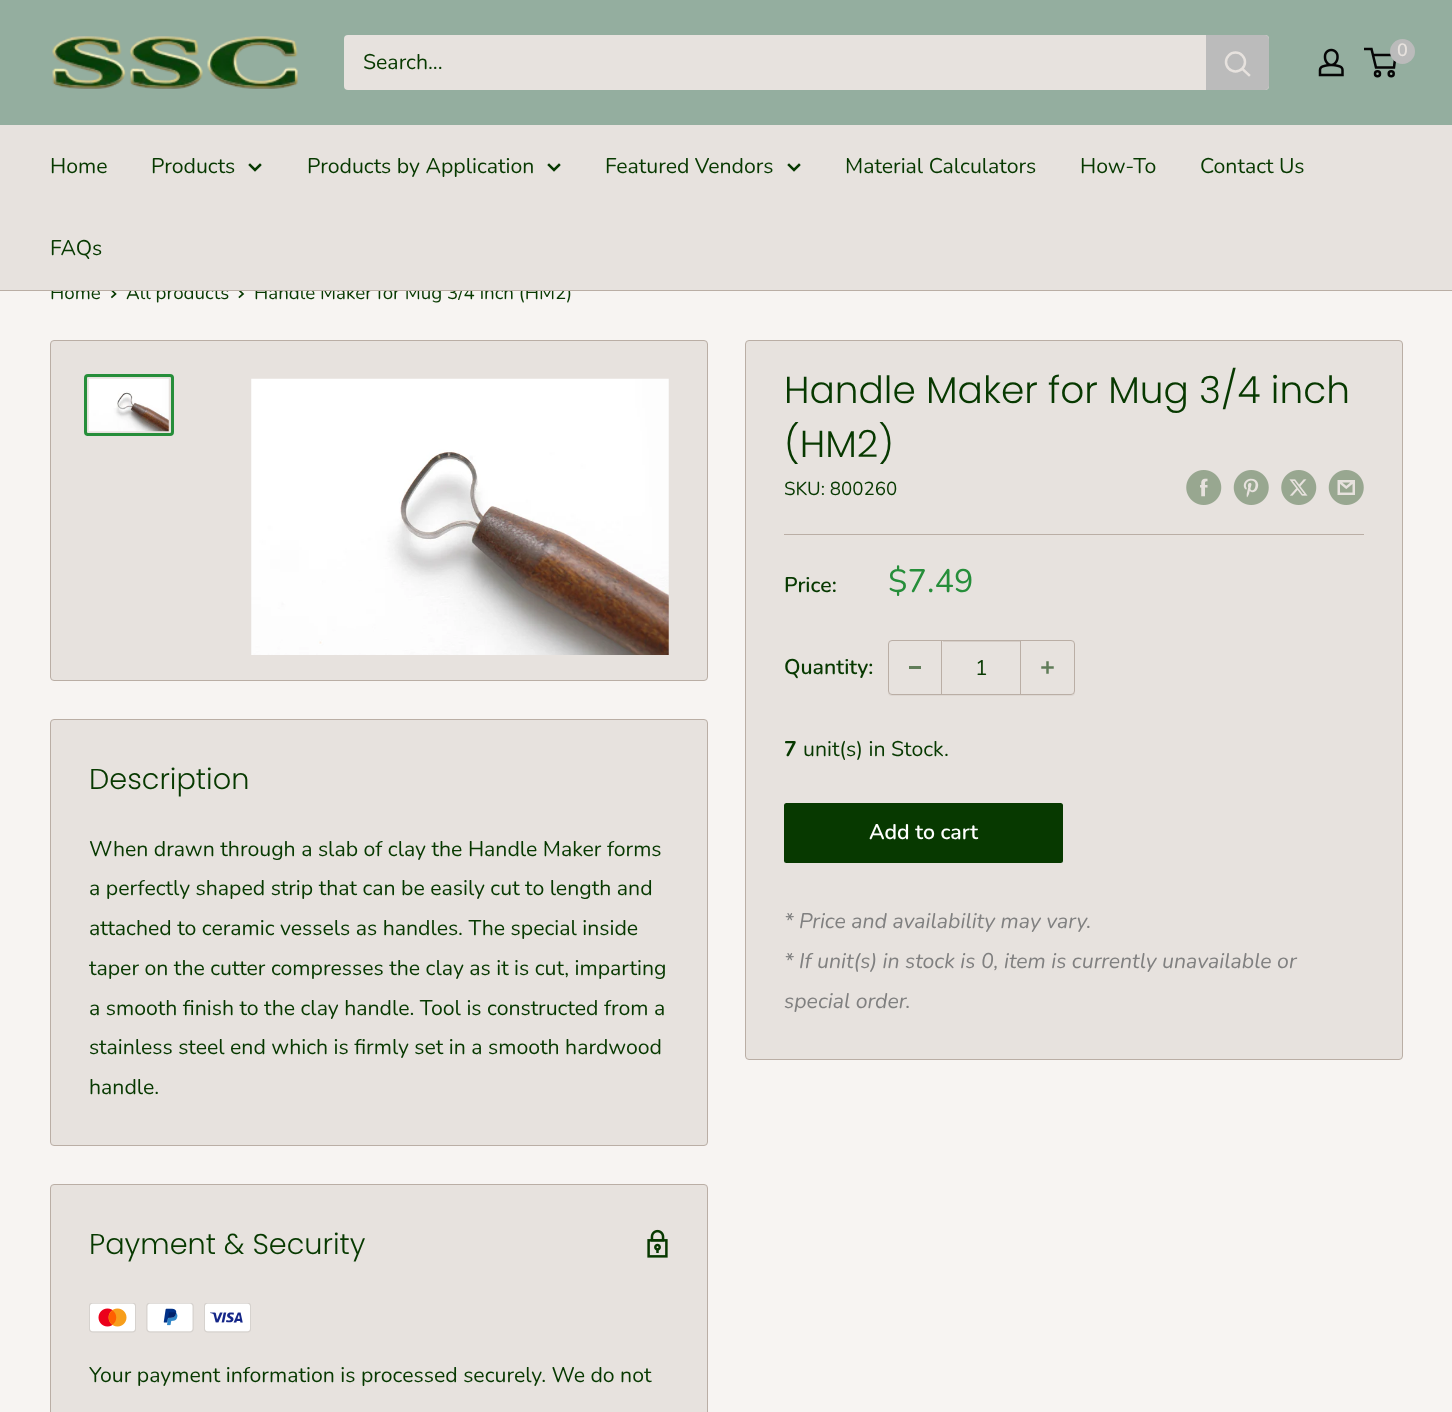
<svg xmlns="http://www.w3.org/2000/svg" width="1452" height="1412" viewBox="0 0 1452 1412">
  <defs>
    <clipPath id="clip1"><path d="M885 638H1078V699H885ZM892 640H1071C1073 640 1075 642 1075 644V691C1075 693 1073 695 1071 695H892C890 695 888 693 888 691V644C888 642 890 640 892 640Z" clip-rule="evenodd"/></clipPath>
  </defs>
  <rect width="100%" height="100%" fill="#f7f4f2"/>
  <path d="M0 0h1452v125H0z" fill="#94ae9f"/>
  <image x="52" y="36" width="246" height="53" href="img/1.png"/>
  <image x="1318" y="48" width="26" height="29" href="img/2.png"/>
  <circle cx="1377.5" cy="73.8" r="2.5" fill="none" stroke="#050505" stroke-width="2.5"/>
  <circle cx="1391.2" cy="73.8" r="2.5" fill="none" stroke="#050505" stroke-width="2.5"/>
  <path d="M1373 55H1395.5L1394 67.5H1376L1371.5 49H1364" fill="none" stroke="#050505" stroke-width="2.5"/>
  <circle cx="1402.5" cy="51.5" r="12.5" fill="#bbb"/>
  <rect x="344" y="35" width="925" height="55" rx="4" fill="#e7e2de"/>
  <path d="M1206 35H1265C1267 35 1269 37 1269 39V86C1269 88 1267 90 1265 90H1206Z" fill="#bbb"/>
  <path d="M1249 75L1242.5 69" fill="none" stroke="#e7e2de" stroke-width="2.5" stroke-linecap="square"/>
  <circle cx="1235.5" cy="62" r="9.5" fill="none" stroke="#e7e2de" stroke-width="2.5"/>
  <path d="M112 290.5L115.5 294L112 297" fill="none" stroke="#073900" stroke-width="1.7" stroke-linecap="square"/>
  <path d="M239.5 290.5L243 294L239.5 297" fill="none" stroke="#073900" stroke-width="1.7" stroke-linecap="square"/>
  <rect x="50.5" y="340.5" width="657" height="340" rx="3.5" fill="#e7e2de" stroke="#baaea5"/>
  <rect x="85.5" y="375.5" width="87" height="59" rx="2.5" fill="none" stroke="#268e3a" stroke-width="3"/>
  <image x="88" y="378" width="81" height="54" href="img/3.png"/>
  <image x="251" y="378" width="418" height="277" href="img/4.png"/>
  <rect x="745.5" y="340.5" width="657" height="719" rx="3.5" fill="#e7e2de" stroke="#baaea5"/>
  <image x="1186" y="470" width="36" height="35" href="img/5.png"/>
  <image x="1233" y="470" width="36" height="35" href="img/6.png"/>
  <image x="1281" y="470" width="36" height="35" href="img/7.png"/>
  <image x="1328" y="470" width="36" height="35" href="img/8.png"/>
  <path d="M784 534h580v1H784z" fill="#baaea5"/>
  <g clip-path="url(#clip1)">
    <rect x="888" y="641" width="187" height="55" rx="4" fill="#baaea533" filter="blur(0.5px)"/>
  </g>
  <rect x="888.5" y="640.5" width="186" height="54" rx="3.5" fill="none" stroke="#baaea5"/>
  <path d="M909 666h12v3H909z" fill="#617d59"/>
  <path d="M943 641h77v1H943z" fill="#d5cdc7"/>
  <path d="M1020 641h1v53H1020z" fill="#baaea5"/>
  <path d="M941 641h1v53H941z" fill="#baaea5"/>
  <image x="1041" y="661" width="13" height="13" href="img/9.png"/>
  <rect x="784" y="803" width="279" height="60" rx="2.5" fill="#073900"/>
  <rect x="50.5" y="719.5" width="657" height="426" rx="3.5" fill="#e7e2de" stroke="#baaea5"/>
  <rect x="50.5" y="1184.5" width="657" height="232" rx="3.5" fill="#e7e2de" stroke="#baaea5"/>
  <image x="647" y="1229" width="21" height="29" href="img/10.png"/>
  <image x="89" y="1303" width="47" height="30" href="img/11.png"/>
  <image x="146" y="1303" width="48" height="30" href="img/12.png"/>
  <image x="204" y="1303" width="47" height="30" href="img/13.png"/>
  <text x="1397" y="56" font-family="Nunito" font-size="18" font-weight="600" fill="#e7e2de">0</text>
  <text x="363" y="69" font-family="Nunito" font-size="21.25" fill="#073900">Search...</text>
  <g font-family="Nunito" font-size="18.75" fill="#073900">
    <text x="50" y="299">Home</text>
    <text x="126" y="299">All products</text>
    <text x="254" y="299">Handle Maker for Mug 3/4 inch (HM2)</text>
  </g>
  <path d="M0 125h1452v165H0z" fill="#e7e2de"/>
  <g font-family="Nunito" font-size="21.25" fill="#073900">
    <text x="50" y="255">FAQs</text>
    <text x="1200" y="173">Contact Us</text>
    <text x="1080" y="173">How-To</text>
    <text x="845" y="173">Material Calculators</text>
  </g>
  <path d="M799 165L794 170L789 165" fill="none" stroke="#073900" stroke-width="2.5" stroke-linecap="square"/>
  <text x="605" y="173" font-family="Nunito" font-size="21.25" fill="#073900">Featured Vendors</text>
  <path d="M559 165L554 170L549 165" fill="none" stroke="#073900" stroke-width="2.5" stroke-linecap="square"/>
  <text x="307" y="173" font-family="Nunito" font-size="21.25" fill="#073900">Products by Application</text>
  <path d="M260 165L255 170L250 165" fill="none" stroke="#073900" stroke-width="2.5" stroke-linecap="square"/>
  <g font-family="Nunito" font-size="21.25" fill="#073900">
    <text x="151" y="173">Products</text>
    <text x="50" y="173">Home</text>
  </g>
  <path d="M0 290h1452v1H0z" fill="#baaea5"/>
  <g font-family="Poppins" font-size="37.5" font-weight="300" fill="#073900">
    <text x="784" y="403">Handle Maker for Mug 3/4 inch</text>
    <text x="784" y="457">(HM2)</text>
  </g>
  <text x="784" y="495" font-family="Nunito" font-size="18.75" fill="#073900">SKU: 800260</text>
  <text x="784" y="592" font-family="Nunito" font-size="21.25" font-weight="600" fill="#073900">Price:</text>
  <text x="888" y="592" font-family="Nunito" font-size="32.5" fill="#268e3a">$7.49</text>
  <text x="784" y="674" font-family="Nunito" font-size="21.25" font-weight="600" fill="#073900">Quantity:</text>
  <text x="975" y="675" font-family="Nunito" font-size="21.25" fill="#073900">1</text>
  <text x="784" y="756" font-family="Nunito" font-size="21.25" font-weight="bold" fill="#073900">7</text>
  <text x="803" y="756" font-family="Nunito" font-size="21.25" fill="#073900">unit(s) in Stock.</text>
  <text x="869" y="839" font-family="Nunito" font-size="21.25" font-weight="600" fill="#fff">Add to cart</text>
  <g font-family="Nunito" font-size="21.25" font-style="italic" fill="#808080">
    <text x="784" y="928">* Price and availability may vary.</text>
    <text x="784" y="968">* If unit(s) in stock is 0, item is currently unavailable or</text>
    <text x="784" y="1008">special order.</text>
  </g>
  <text x="89" y="789" font-family="Poppins" font-size="28.75" font-weight="300" fill="#073900">Description</text>
  <g font-family="Nunito" font-size="21.25" fill="#073900">
    <text x="89" y="856">When drawn through a slab of clay the Handle Maker forms</text>
    <text x="89" y="895">a perfectly shaped strip that can be easily cut to length and</text>
    <text x="89" y="935">attached to ceramic vessels as handles. The special inside</text>
    <text x="89" y="975">taper on the cutter compresses the clay as it is cut, imparting</text>
    <text x="89" y="1015">a smooth finish to the clay handle. Tool is constructed from a</text>
    <text x="89" y="1054">stainless steel end which is firmly set in a smooth hardwood</text>
    <text x="89" y="1094">handle.</text>
  </g>
  <text x="89" y="1254" font-family="Poppins" font-size="28.75" font-weight="300" fill="#073900">Payment &amp; Security</text>
  <text x="89" y="1382" font-family="Nunito" font-size="21.25" fill="#073900">Your payment information is processed securely. We do not</text>
</svg>
